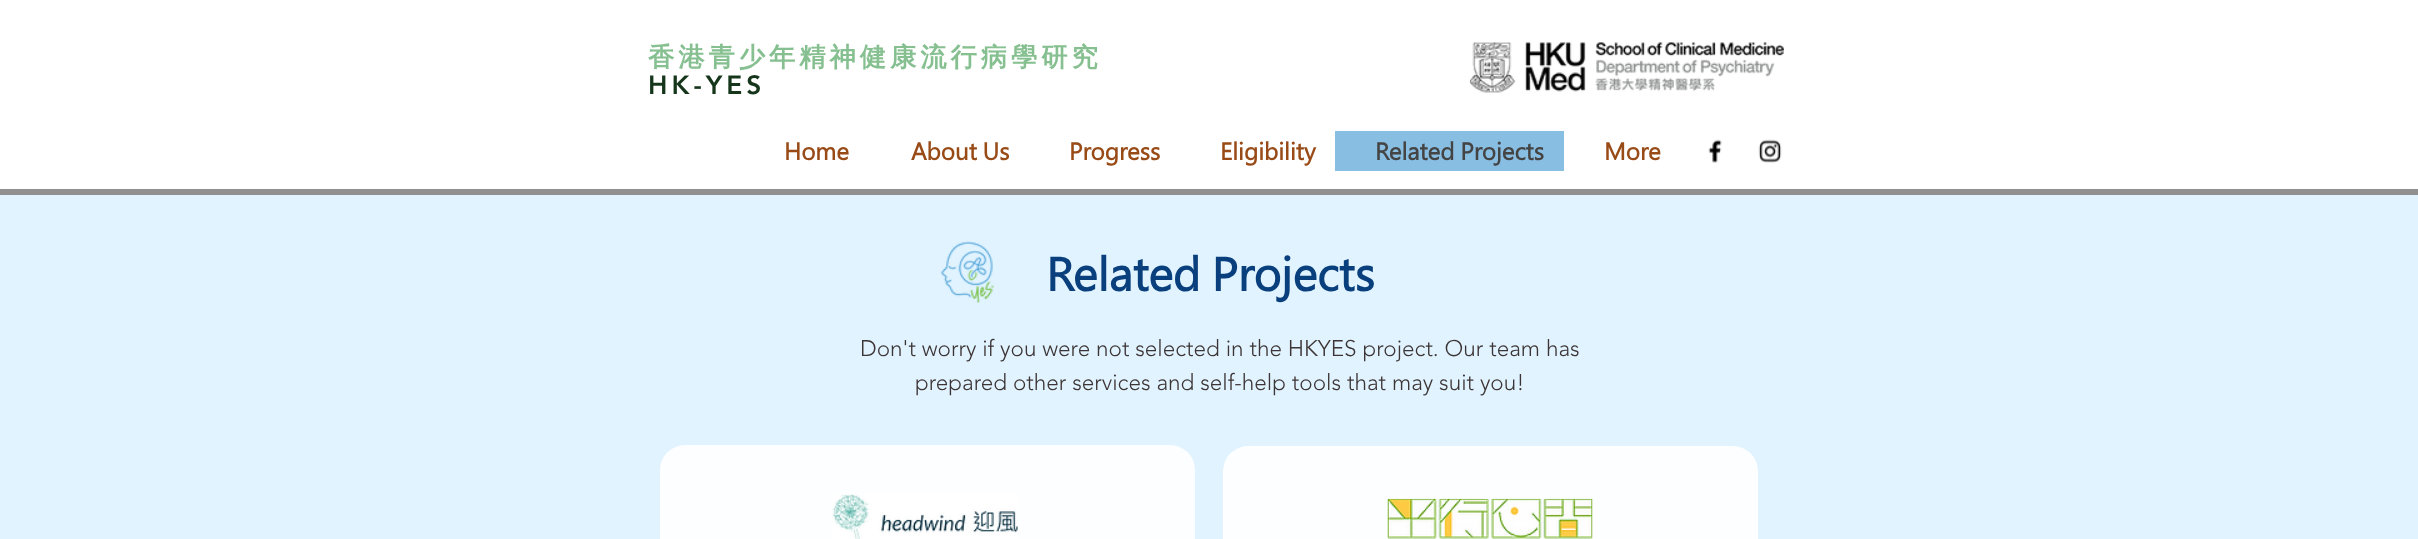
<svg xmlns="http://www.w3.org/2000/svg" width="2418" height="539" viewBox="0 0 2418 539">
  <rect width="100%" height="100%" fill="#e0f3ff"/>
  <path d="M0 0h2418v189H0z" fill="#fff"/>
  <path d="M0 189h2418v6H0z" fill="#909090"/>
  <image x="1470" y="42" width="314" height="51" href="img/1.png"/>
  <path d="M1335 131h229v40H1335z" fill="#89bee3"/>
  <image x="1708" y="139" width="14" height="24" href="img/2.png"/>
  <image x="1758" y="139" width="24" height="24" href="img/3.png"/>
  <image x="941" y="241" width="53" height="62" href="img/4.png"/>
  <rect x="660" y="445" width="535" height="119" rx="25" fill="#ffffffeb"/>
  <image x="832" y="494" width="186" height="45" href="img/5.png"/>
  <rect x="1223" y="446" width="535" height="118" rx="25" fill="#ffffffeb"/>
  <image x="1387" y="498" width="206" height="41" href="img/6.png"/>
  <text x="648" y="66" font-family="WenQuanYi Zen Hei" font-size="26.25" font-weight="bold" letter-spacing="4" fill="#86c091">香港青少年精神健康流行病學研究</text>
  <text x="648" y="94" font-family="'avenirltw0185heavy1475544'" font-size="26.25" font-weight="900" letter-spacing="4" fill="#15361b">HK-YES</text>
  <g font-family="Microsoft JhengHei" font-size="22.5" font-weight="bold" fill="#994b17">
    <text x="784" y="160">Home</text>
    <text x="911" y="160">About Us</text>
    <text x="1069" y="160">Progress</text>
    <text x="1220" y="160">Eligibility</text>
  </g>
  <text x="1375" y="160" font-family="Microsoft JhengHei" font-size="22.5" font-weight="bold" fill="#444">Related Projects</text>
  <text x="1604" y="160" font-family="Microsoft JhengHei" font-size="22.5" font-weight="bold" fill="#994b17">More</text>
  <text x="1046" y="291" font-family="Microsoft JhengHei" font-size="43.75" font-weight="bold" fill="#093f7c">Related Projects</text>
  <g font-family="'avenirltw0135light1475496'" font-size="22.5" font-weight="300" fill="#3d3535">
    <text x="860" y="356">Don't worry if you were not selected in the HKYES project. Our team has</text>
    <text x="915" y="390">prepared other services and self-help tools that may suit you!</text>
  </g>
</svg>
